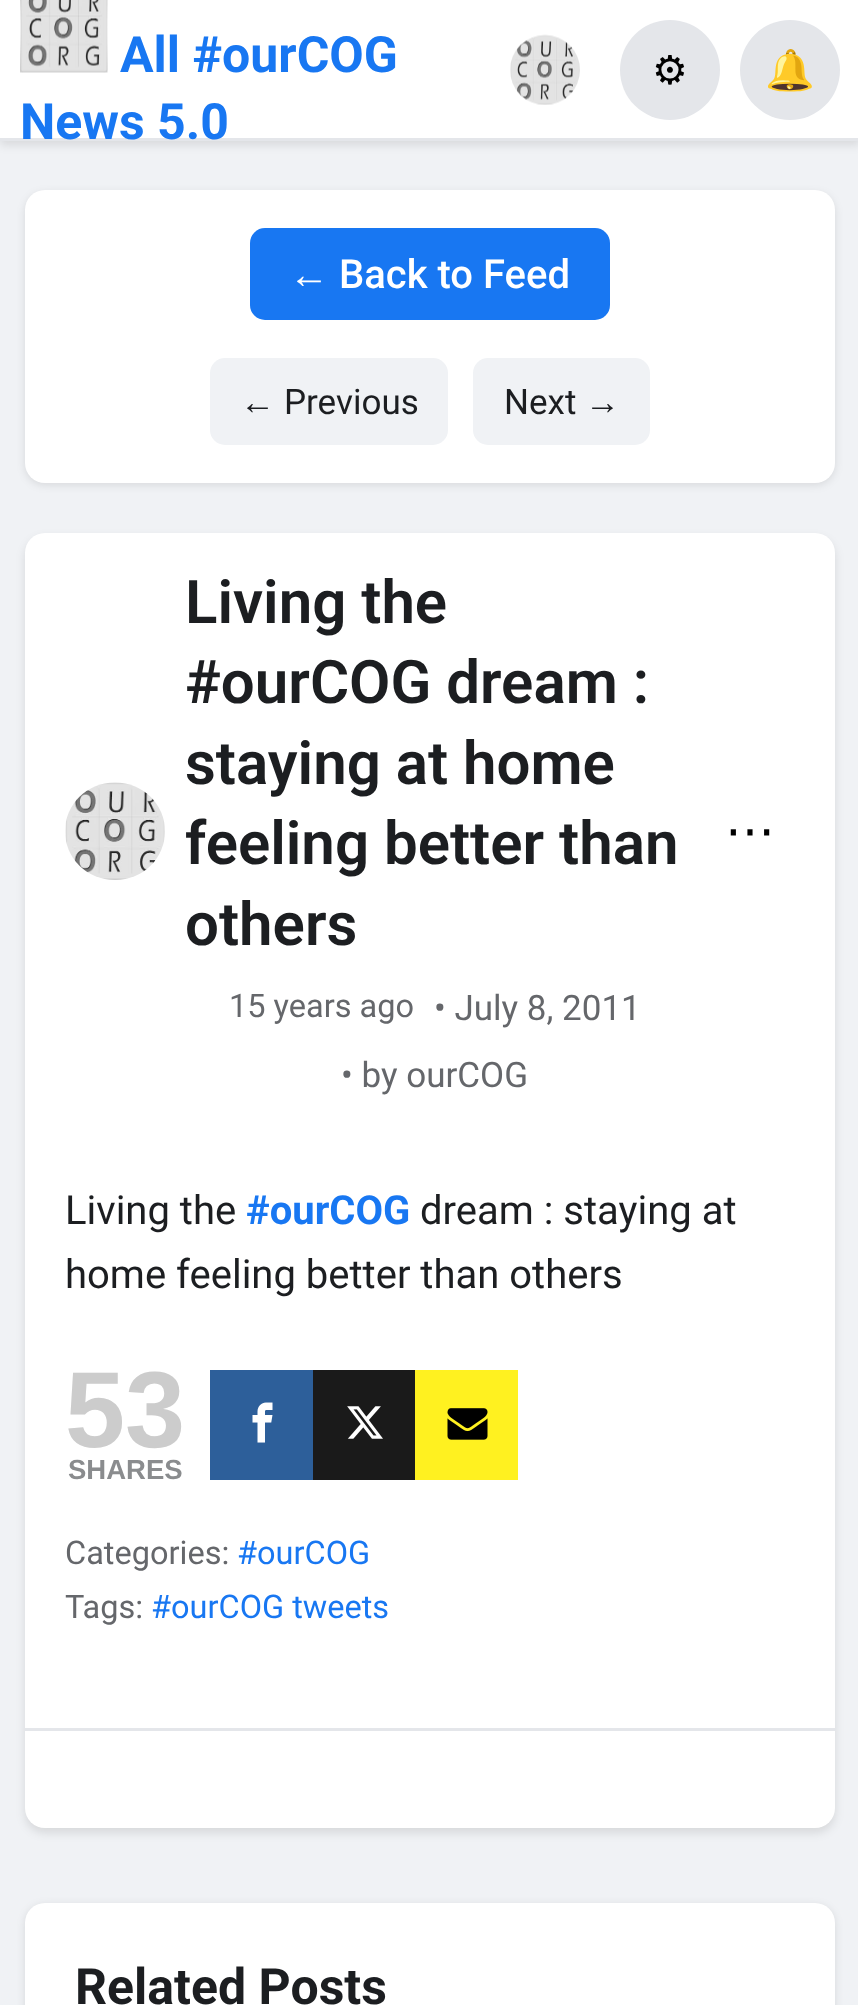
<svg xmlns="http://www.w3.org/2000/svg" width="858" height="2005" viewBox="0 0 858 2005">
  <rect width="100%" height="100%" fill="#f0f2f5"/>
  <path d="M0 5h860v140H0z" fill="#0000001a" filter="blur(5px)"/>
  <path d="M0 0h858v138H0z" fill="#fff"/>
  <path d="M0 138h858v3H0z" fill="#e4e6ea"/>
  <image x="20" y="0" width="88" height="73" href="img/1.png"/>
  <image x="510" y="34" width="70" height="71" href="img/2.png"/>
  <circle cx="670" cy="70" r="50" fill="#e4e6ea"/>
  <circle cx="790" cy="70" r="50" fill="#e4e6ea"/>
  <rect x="25" y="193" width="810" height="292" rx="20" fill="#0000001a" filter="blur(4px)"/>
  <rect x="25" y="190" width="810" height="293" rx="20" fill="#fff"/>
  <rect x="250" y="228" width="360" height="92" rx="15" fill="#1877f2"/>
  <rect x="210" y="358" width="238" height="87" rx="15" fill="#f0f2f5"/>
  <rect x="473" y="358" width="177" height="87" rx="15" fill="#f0f2f5"/>
  <rect x="25" y="538" width="810" height="1295" rx="20" fill="#0000001a" filter="blur(5px)"/>
  <rect x="25" y="533" width="810" height="1295" rx="20" fill="#fff"/>
  <image x="65" y="782" width="100" height="98" href="img/3.png"/>
  <path d="M210 1370h103v110H210z" fill="#2d5f9a"/>
  <image x="252" y="1402" width="21" height="41" href="img/4.png"/>
  <path d="M313 1370h102v110H313z" fill="#1a1a1a"/>
  <image x="347" y="1406" width="36" height="33" href="img/5.png"/>
  <path d="M415 1370h103v110H415z" fill="#fff120"/>
  <image x="447" y="1408" width="41" height="32" href="img/6.png"/>
  <path d="M25 1728h810v3H25z" fill="#e4e6ea"/>
  <rect x="25" y="1905" width="810" height="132" rx="20" fill="#0000001a" filter="blur(4px)"/>
  <rect x="25" y="1903" width="810" height="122" rx="20" fill="#fff"/>
  <g font-family="Roboto" font-size="50" font-weight="bold" fill="#1877f2">
    <text x="120" y="72">All #ourCOG</text>
    <text x="20" y="139">News 5.0</text>
  </g>
  <text x="652" y="84" font-family="DejaVu Sans" font-size="40" fill="#000">⚙</text>
  <text x="765" y="84" font-family="Noto Color Emoji" font-size="40" fill="#000">🔔</text>
  <text x="289" y="288" font-family="Liberation Sans" font-size="40" fill="#fff">←</text>
  <text x="339" y="288" font-family="Roboto" font-size="40" font-weight="500" fill="#fff">Back to Feed</text>
  <text x="240" y="414" font-family="Liberation Sans" font-size="35" fill="#1c1e21">←</text>
  <g font-family="Roboto" font-size="35" fill="#1c1e21">
    <text x="284" y="414">Previous</text>
    <text x="504" y="414">Next</text>
  </g>
  <text x="585" y="414" font-family="Liberation Sans" font-size="35" fill="#1c1e21">→</text>
  <g font-family="Roboto" font-size="60" font-weight="600" fill="#1c1e21">
    <text x="185" y="623">Living the</text>
    <text x="185" y="703">#ourCOG dream :</text>
    <text x="185" y="784">staying at home</text>
    <text x="185" y="864">feeling better than</text>
    <text x="185" y="945">others</text>
  </g>
  <text x="229" y="1017" font-family="Roboto" font-size="32.5" fill="#65676b">15 years ago</text>
  <g font-family="Roboto" font-size="35" fill="#65676b">
    <text x="434" y="1020">• July 8, 2011</text>
    <text x="341" y="1087">• by ourCOG</text>
  </g>
  <text x="725" y="848" font-family="DejaVu Sans" font-size="50" fill="#000">⋯</text>
  <text x="65" y="1224" font-family="Roboto" font-size="40" fill="#1c1e21">Living the</text>
  <text x="246" y="1224" font-family="Roboto" font-size="40" font-weight="bold" fill="#1877f2">#ourCOG</text>
  <g font-family="Roboto" font-size="40" fill="#1c1e21">
    <text x="420" y="1224">dream : staying at</text>
    <text x="65" y="1288">home feeling better than others</text>
  </g>
  <text x="65" y="1447" font-family="Liberation Sans" font-size="108" font-weight="bold" fill="#ccc">53</text>
  <text x="68" y="1479" font-family="Liberation Sans" font-size="27.5" font-weight="bold" fill="#8a8c8e">SHARES</text>
  <text x="65" y="1564" font-family="Roboto" font-size="32.5" fill="#65676b">Categories:</text>
  <text x="237" y="1564" font-family="Roboto" font-size="32.5" fill="#1877f2">#ourCOG</text>
  <text x="65" y="1618" font-family="Roboto" font-size="32.5" fill="#65676b">Tags:</text>
  <text x="151" y="1618" font-family="Roboto" font-size="32.5" fill="#1877f2">#ourCOG tweets</text>
  <text x="75" y="2004" font-family="Roboto" font-size="50" font-weight="bold" fill="#1c1e21">Related Posts</text>
</svg>
